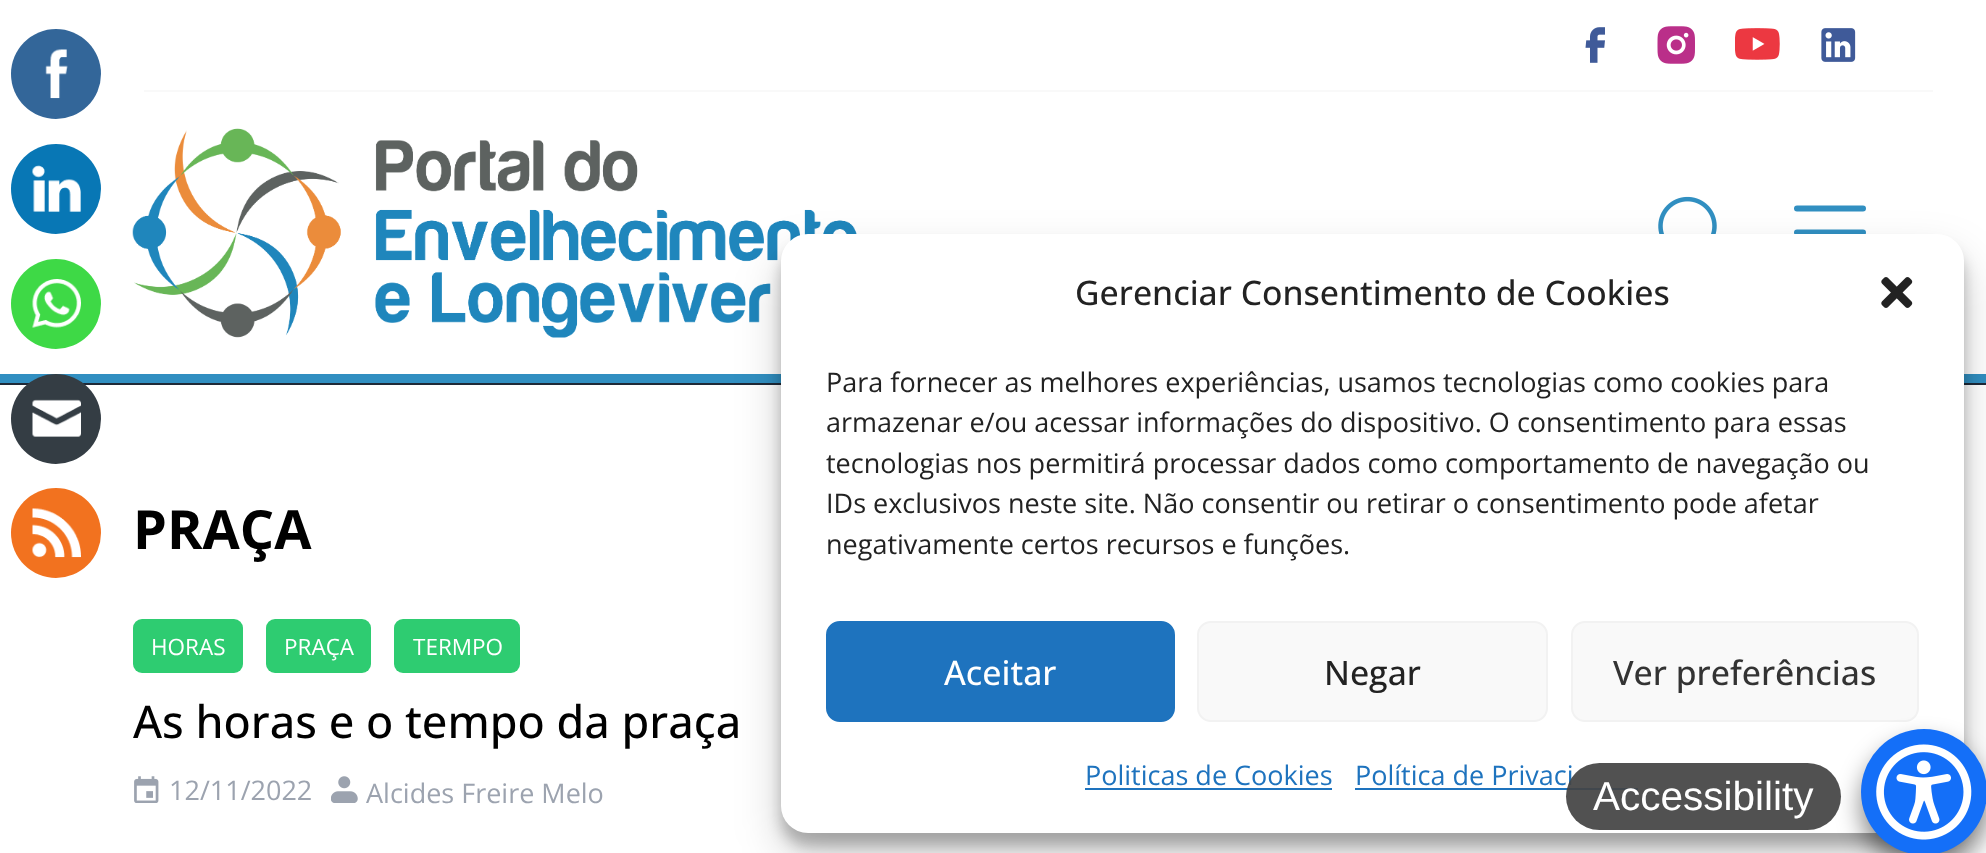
<svg xmlns="http://www.w3.org/2000/svg" width="1986" height="853" viewBox="0 0 1986 853">
  <rect width="100%" height="100%" fill="#fff"/>
  <circle cx="56" cy="74" r="45" fill="#369"/>
  <image x="45" y="49" width="23" height="50" href="img/1.png"/>
  <circle cx="56" cy="189" r="45" fill="#0877b5"/>
  <image x="32" y="165" width="49" height="47" href="img/2.png"/>
  <circle cx="56" cy="304" r="45" fill="#3ed946"/>
  <image x="32" y="279" width="49" height="49" href="img/3.png"/>
  <path d="M0 383h1986v2H0z" fill="#1f2937"/>
  <path d="M0 374h1986v9H0z" fill="#318fc1"/>
  <circle cx="56" cy="419" r="45" fill="#343d44"/>
  <image x="32" y="399" width="49" height="38" href="img/4.png"/>
  <circle cx="56" cy="533" r="45" fill="#f2721f"/>
  <image x="32" y="508" width="49" height="50" href="img/5.png"/>
  <path d="M144 90h1789v2H144z" fill="#f9f9f9"/>
  <image x="1585" y="27" width="20" height="36" href="img/6.png"/>
  <image x="1657" y="26" width="38" height="38" href="img/7.png"/>
  <image x="1735" y="28" width="45" height="32" href="img/8.png"/>
  <image x="1821" y="28" width="35" height="34" href="img/9.png"/>
  <image x="132" y="128" width="725" height="210" href="img/10.png"/>
  <image x="1658" y="196" width="59" height="38" href="img/11.png"/>
  <path d="M1797 208.5H1863M1797 232.5H1863M1797 256.5H1863" fill="none" stroke="#318fc1" stroke-width="6" stroke-linecap="round" stroke-linejoin="round"/>
  <rect x="133" y="619" width="110" height="54" rx="9" fill="#2ecc71"/>
  <rect x="266" y="619" width="105" height="54" rx="9" fill="#2ecc71"/>
  <rect x="394" y="619" width="126" height="54" rx="9" fill="#2ecc71"/>
  <image x="134" y="776" width="25" height="27" href="img/12.png"/>
  <image x="331" y="776" width="27" height="27" href="img/13.png"/>
  <rect x="781" y="248" width="1183" height="598" rx="27" fill="#0000003b" filter="blur(7px)"/>
  <rect x="781" y="257" width="1183" height="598" rx="27" fill="#00000030" filter="blur(22.5px)"/>
  <rect x="781" y="234" width="1183" height="599" rx="27" fill="#fff"/>
  <image x="1881" y="277" width="32" height="31" href="img/14.png"/>
  <rect x="827" y="622" width="347" height="99" rx="13" fill="#1e73be" stroke="#1e73be" stroke-width="2"/>
  <rect x="1198" y="622" width="349" height="99" rx="13" fill="#f9f9f9" stroke="#f2f2f2" stroke-width="2"/>
  <rect x="1572" y="622" width="346" height="99" rx="13" fill="#f9f9f9" stroke="#f2f2f2" stroke-width="2"/>
  <path d="M1085 788h247v2H1085z" fill="#1e73be"/>
  <path d="M1355 788h283v2H1355z" fill="#1e73be"/>
  <rect x="1861" y="743" width="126" height="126" rx="63" fill="#00000078" filter="blur(12.5px)"/>
  <circle cx="1924" cy="792" r="63" fill="#146ff8"/>
  <image x="1876" y="744" width="96" height="96" href="img/15.png"/>
  <text x="133" y="549" font-family="Open Sans" font-size="54" font-weight="bold" fill="#000">PRAÇA</text>
  <g font-family="Open Sans" font-size="22.5" fill="#fff">
    <text x="151" y="655">HORAS</text>
    <text x="284" y="655">PRAÇA</text>
    <text x="413" y="655">TERMPO</text>
  </g>
  <text x="133" y="738" font-family="Open Sans" font-size="45" font-weight="500" fill="#000">As horas e o tempo da praça</text>
  <g font-family="Open Sans" font-size="27" fill="#9ca3af">
    <text x="169" y="800">12/11/2022</text>
    <text x="366" y="803">Alcides Freire Melo</text>
  </g>
  <text x="1075" y="305" font-family="Open Sans" font-size="33.75" font-weight="500" fill="#222">Gerenciar Consentimento de Cookies</text>
  <g font-family="Open Sans" font-size="27" fill="#222">
    <text x="826" y="392">Para fornecer as melhores experiências, usamos tecnologias como cookies para</text>
    <text x="826" y="432">armazenar e/ou acessar informações do dispositivo. O consentimento para essas</text>
    <text x="826" y="473">tecnologias nos permitirá processar dados como comportamento de navegação ou</text>
    <text x="826" y="513">IDs exclusivos neste site. Não consentir ou retirar o consentimento pode afetar</text>
    <text x="826" y="554">negativamente certos recursos e funções.</text>
  </g>
  <text x="944" y="685" font-family="Open Sans" font-size="33.75" font-weight="500" fill="#fff">Aceitar</text>
  <text x="1324" y="685" font-family="Open Sans" font-size="33.75" font-weight="500" fill="#222">Negar</text>
  <text x="1613" y="685" font-family="Open Sans" font-size="33.75" font-weight="500" fill="#333">Ver preferências</text>
  <g font-family="Open Sans" font-size="27" fill="#1e73be">
    <text x="1085" y="785">Politicas de Cookies</text>
    <text x="1355" y="785">Política de Privaci</text>
  </g>
  <rect x="1566" y="763" width="275" height="67" rx="33.5" fill="#444444ed"/>
  <text x="1593" y="810" font-family="Liberation Sans" font-size="40.5" fill="#fff">Accessibility</text>
</svg>
